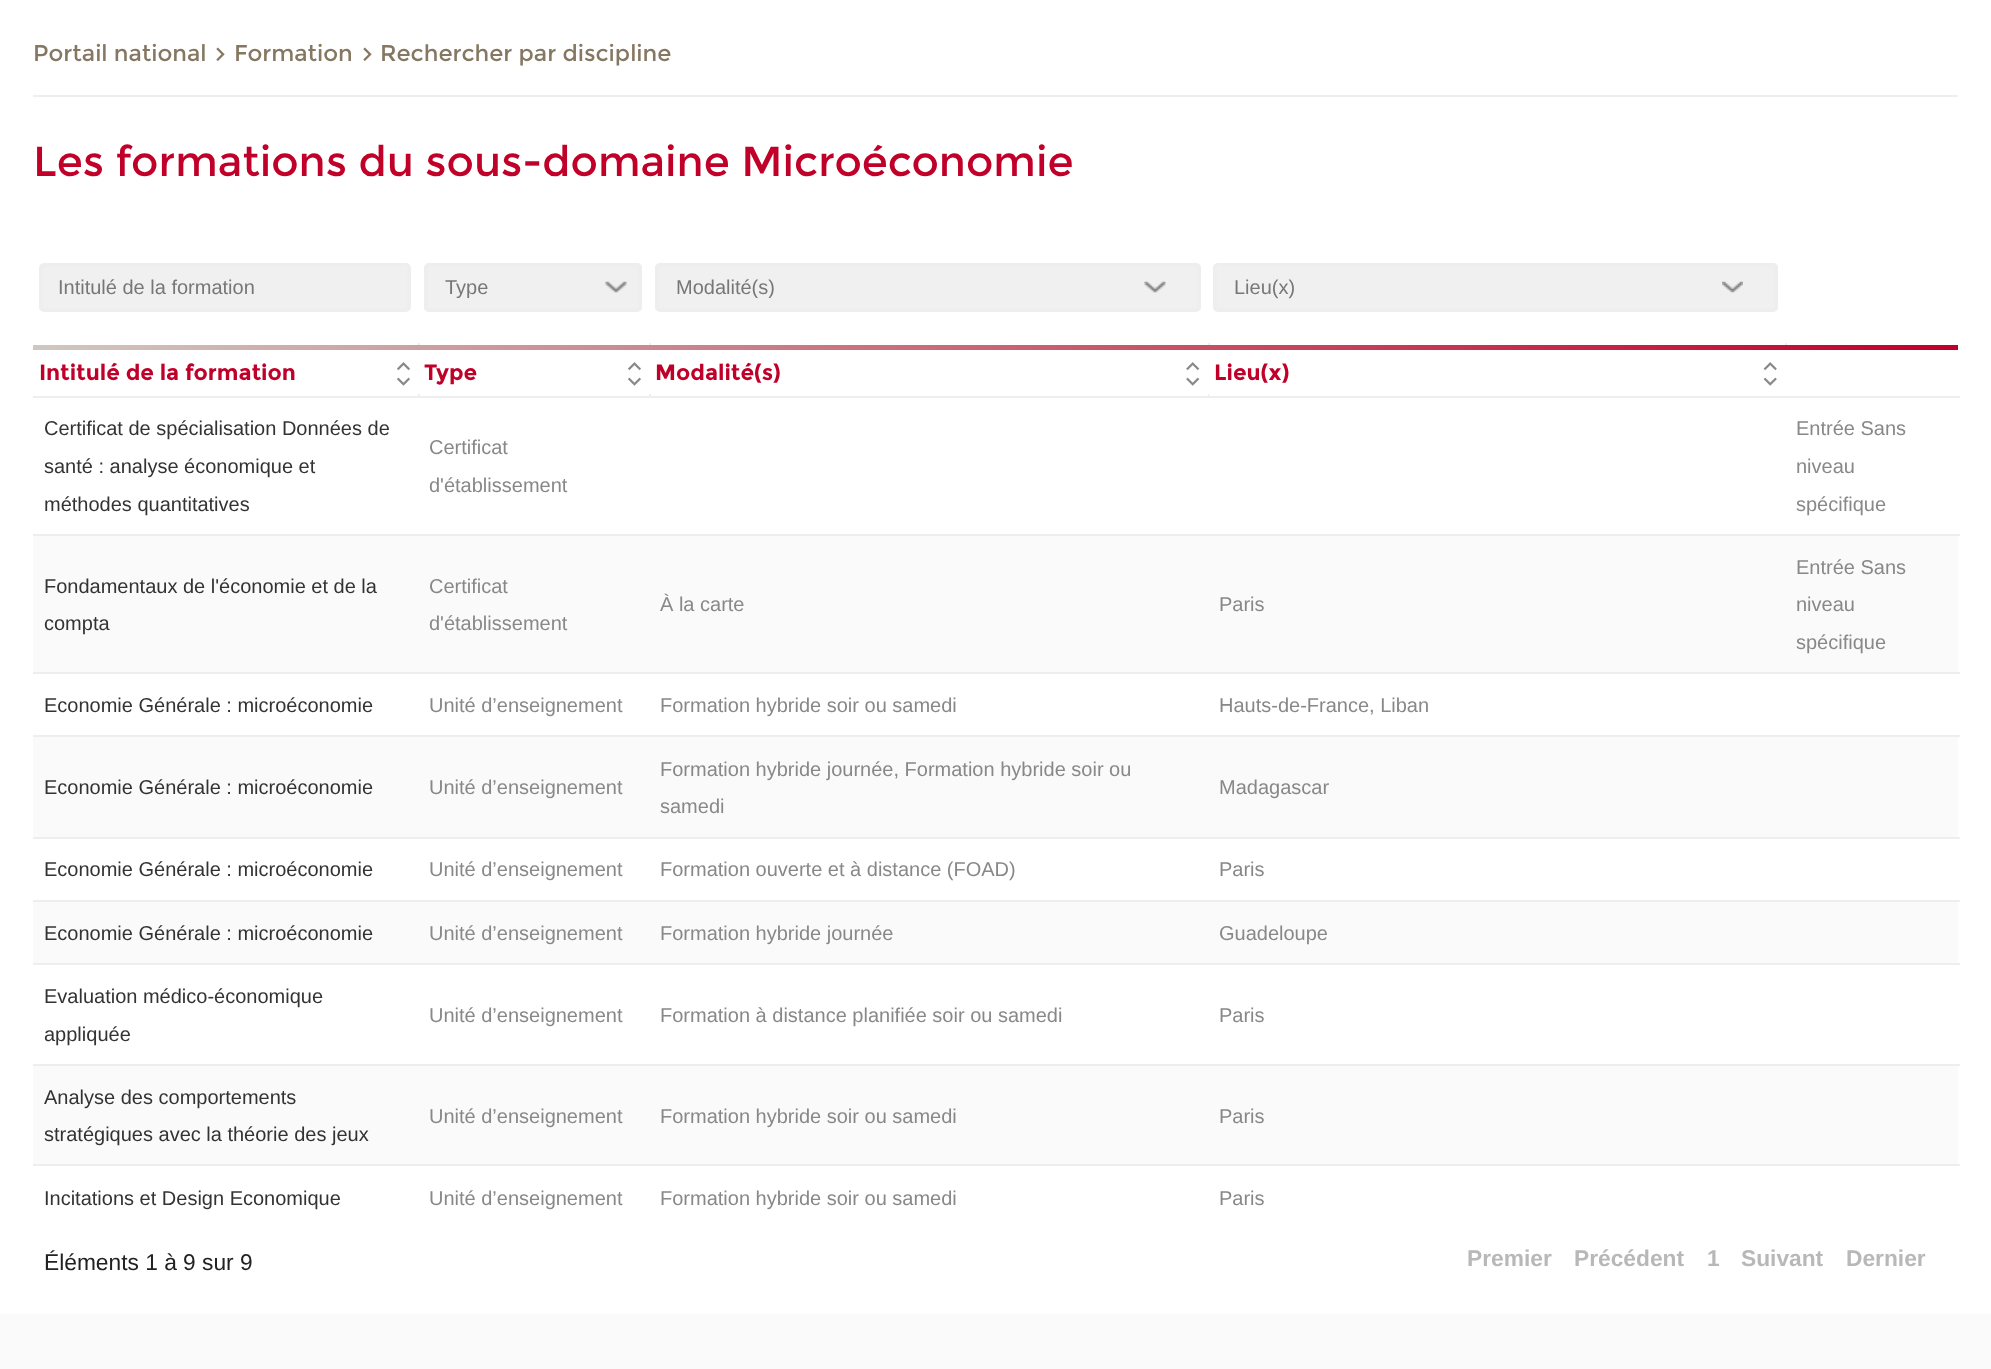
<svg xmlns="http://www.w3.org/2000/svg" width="1991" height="1369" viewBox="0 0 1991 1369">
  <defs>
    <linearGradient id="g1" gradientUnits="userSpaceOnUse" x1="33" y1="347" x2="1958" y2="347"><stop offset="0" stop-color="#cfc8c0"/><stop offset="1" stop-color="#c1002a"/></linearGradient>
    <clipPath id="clip1"><path d="M443 277h149v21H443z"/></clipPath>
    <clipPath id="clip2"><path d="M674 277h476v21H674z"/></clipPath>
  </defs>
  <rect width="100%" height="100%" fill="#fafafa"/>
  <path d="M0 0h1991v1314H0z" fill="#fff"/>
  <path d="M33 95h1925v2H33z" fill="#eee"/>
  <image x="216" y="47" width="9" height="14" href="img/1.png"/>
  <image x="363" y="47" width="9" height="14" href="img/1.png"/>
  <rect x="41" y="265" width="368" height="45" rx="3" fill="#f0f0f0" stroke="#eee" stroke-width="4"/>
  <rect x="424" y="263" width="218" height="49" rx="5" fill="#f0f0f0"/>
  <image x="605" y="281" width="22" height="12" href="img/2.png"/>
  <rect x="426" y="265" width="214" height="45" rx="3" fill="none" stroke="#eee" stroke-width="4"/>
  <rect x="655" y="263" width="546" height="49" rx="5" fill="#f0f0f0"/>
  <image x="1144" y="281" width="22" height="12" href="img/3.png"/>
  <rect x="657" y="265" width="542" height="45" rx="3" fill="none" stroke="#eee" stroke-width="4"/>
  <rect x="1213" y="263" width="565" height="49" rx="5" fill="#f0f0f0"/>
  <image x="1722" y="281" width="21" height="12" href="img/4.png"/>
  <rect x="1215" y="265" width="561" height="45" rx="3" fill="none" stroke="#eee" stroke-width="4"/>
  <path d="M1208 396h752v2H1208z" fill="#eee"/>
  <path d="M1208 343h2v54H1208z" fill="#eee"/>
  <path d="M649 396h560v2H649z" fill="#eee"/>
  <path d="M649 343h2v54H649z" fill="#eee"/>
  <path d="M418 396h233v2H418z" fill="#eee"/>
  <path d="M418 343h2v54H418z" fill="#eee"/>
  <path d="M33 345h1925v5H33z" fill="url(#g1)"/>
  <path d="M33 396h387v2H33z" fill="#eee"/>
  <image x="397" y="362" width="13" height="9" href="img/5.png"/>
  <image x="397" y="377" width="13" height="9" href="img/6.png"/>
  <path d="M418 350h2v44H418z" fill="#fff"/>
  <image x="628" y="362" width="13" height="9" href="img/5.png"/>
  <image x="628" y="377" width="13" height="9" href="img/6.png"/>
  <path d="M649 350h2v44H649z" fill="#fff"/>
  <image x="1186" y="362" width="14" height="9" href="img/7.png"/>
  <image x="1186" y="377" width="14" height="9" href="img/8.png"/>
  <path d="M1785 343h2v2H1785z" fill="#eee"/>
  <path d="M1208 350h2v44H1208z" fill="#fff"/>
  <image x="1209" y="394" width="1" height="2" href="img/9.png"/>
  <image x="1763" y="362" width="14" height="9" href="img/10.png"/>
  <image x="1763" y="377" width="14" height="9" href="img/11.png"/>
  <path d="M33 534h1927v2H33z" fill="#eee"/>
  <path d="M33 536h1925v136H33z" fill="#fafafa"/>
  <path d="M33 672h1927v2H33z" fill="#eee"/>
  <path d="M33 735h1927v2H33z" fill="#eee"/>
  <path d="M33 737h1925v100H33z" fill="#fafafa"/>
  <path d="M33 837h1927v2H33z" fill="#eee"/>
  <path d="M33 900h1927v2H33z" fill="#eee"/>
  <path d="M33 902h1925v61H33z" fill="#fafafa"/>
  <path d="M33 963h1927v2H33z" fill="#eee"/>
  <path d="M33 1064h1927v2H33z" fill="#eee"/>
  <path d="M33 1066h1925v98H33z" fill="#fafafa"/>
  <path d="M33 1164h1927v2H33z" fill="#eee"/>
  <g font-family="Montserrat" font-size="22.75" fill="#857761">
    <text x="33" y="61">Portail national</text>
    <text x="234" y="61">Formation</text>
    <text x="380" y="61">Rechercher par discipline</text>
  </g>
  <text x="33" y="176" font-family="Montserrat" font-size="42" fill="#c1002a">Les formations du sous-domaine Microéconomie</text>
  <text x="58" y="294" font-family="Liberation Sans" font-size="20" fill="#777">Intitulé de la formation</text>
  <g clip-path="url(#clip1)">
    <text x="445" y="294" font-family="Liberation Sans" font-size="20" fill="#777">Type</text>
  </g>
  <g clip-path="url(#clip2)">
    <text x="676" y="294" font-family="Liberation Sans" font-size="20" fill="#777">Modalité(s)</text>
  </g>
  <text x="1234" y="294" font-family="Liberation Sans" font-size="20" fill="#777">Lieu(x)</text>
  <g font-family="Montserrat" font-size="22" font-weight="bold" fill="#c1002a">
    <text x="39" y="380">Intitulé de la formation</text>
    <text x="424" y="380">Type</text>
    <text x="655" y="380">Modalité(s)</text>
    <text x="1214" y="380">Lieu(x)</text>
  </g>
  <g font-family="Liberation Sans" font-size="20" fill="#333">
    <text x="44" y="435">Certificat de spécialisation Données de</text>
    <text x="44" y="473">santé : analyse économique et</text>
    <text x="44" y="511">méthodes quantitatives</text>
  </g>
  <g font-family="Liberation Sans" font-size="20" fill="#888">
    <text x="429" y="454">Certificat</text>
    <text x="429" y="492">d'établissement</text>
    <text x="1796" y="435">Entrée Sans</text>
    <text x="1796" y="473">niveau</text>
    <text x="1796" y="511">spécifique</text>
  </g>
  <g font-family="Liberation Sans" font-size="20" fill="#333">
    <text x="44" y="593">Fondamentaux de l'économie et de la</text>
    <text x="44" y="630">compta</text>
  </g>
  <g font-family="Liberation Sans" font-size="20" fill="#888">
    <text x="429" y="593">Certificat</text>
    <text x="429" y="630">d'établissement</text>
    <text x="660" y="611">À la carte</text>
    <text x="1219" y="611">Paris</text>
    <text x="1796" y="574">Entrée Sans</text>
    <text x="1796" y="611">niveau</text>
    <text x="1796" y="649">spécifique</text>
  </g>
  <text x="44" y="712" font-family="Liberation Sans" font-size="20" fill="#333">Economie Générale : microéconomie</text>
  <g font-family="Liberation Sans" font-size="20" fill="#888">
    <text x="429" y="712">Unité d’enseignement</text>
    <text x="660" y="712">Formation hybride soir ou samedi</text>
    <text x="1219" y="712">Hauts-de-France, Liban</text>
  </g>
  <text x="44" y="794" font-family="Liberation Sans" font-size="20" fill="#333">Economie Générale : microéconomie</text>
  <g font-family="Liberation Sans" font-size="20" fill="#888">
    <text x="429" y="794">Unité d’enseignement</text>
    <text x="660" y="776">Formation hybride journée, Formation hybride soir ou</text>
    <text x="660" y="813">samedi</text>
    <text x="1219" y="794">Madagascar</text>
  </g>
  <text x="44" y="876" font-family="Liberation Sans" font-size="20" fill="#333">Economie Générale : microéconomie</text>
  <g font-family="Liberation Sans" font-size="20" fill="#888">
    <text x="429" y="876">Unité d’enseignement</text>
    <text x="660" y="876">Formation ouverte et à distance (FOAD)</text>
    <text x="1219" y="876">Paris</text>
  </g>
  <text x="44" y="940" font-family="Liberation Sans" font-size="20" fill="#333">Economie Générale : microéconomie</text>
  <g font-family="Liberation Sans" font-size="20" fill="#888">
    <text x="429" y="940">Unité d’enseignement</text>
    <text x="660" y="940">Formation hybride journée</text>
    <text x="1219" y="940">Guadeloupe</text>
  </g>
  <g font-family="Liberation Sans" font-size="20" fill="#333">
    <text x="44" y="1003">Evaluation médico-économique</text>
    <text x="44" y="1041">appliquée</text>
  </g>
  <g font-family="Liberation Sans" font-size="20" fill="#888">
    <text x="429" y="1022">Unité d’enseignement</text>
    <text x="660" y="1022">Formation à distance planifiée soir ou samedi</text>
    <text x="1219" y="1022">Paris</text>
  </g>
  <g font-family="Liberation Sans" font-size="20" fill="#333">
    <text x="44" y="1104">Analyse des comportements</text>
    <text x="44" y="1141">stratégiques avec la théorie des jeux</text>
  </g>
  <g font-family="Liberation Sans" font-size="20" fill="#888">
    <text x="429" y="1123">Unité d’enseignement</text>
    <text x="660" y="1123">Formation hybride soir ou samedi</text>
    <text x="1219" y="1123">Paris</text>
  </g>
  <text x="44" y="1205" font-family="Liberation Sans" font-size="20" fill="#333">Incitations et Design Economique</text>
  <g font-family="Liberation Sans" font-size="20" fill="#888">
    <text x="429" y="1205">Unité d’enseignement</text>
    <text x="660" y="1205">Formation hybride soir ou samedi</text>
    <text x="1219" y="1205">Paris</text>
  </g>
  <text x="44" y="1270" font-family="Liberation Sans" font-size="22.75" fill="#222">Éléments 1 à 9 sur 9</text>
  <g font-family="Liberation Sans" font-size="22.75" font-weight="bold" fill="#b8b8b8">
    <text x="1467" y="1266">Premier</text>
    <text x="1574" y="1266">Précédent</text>
    <text x="1707" y="1266">1</text>
    <text x="1741" y="1266">Suivant</text>
    <text x="1846" y="1266">Dernier</text>
  </g>
</svg>
